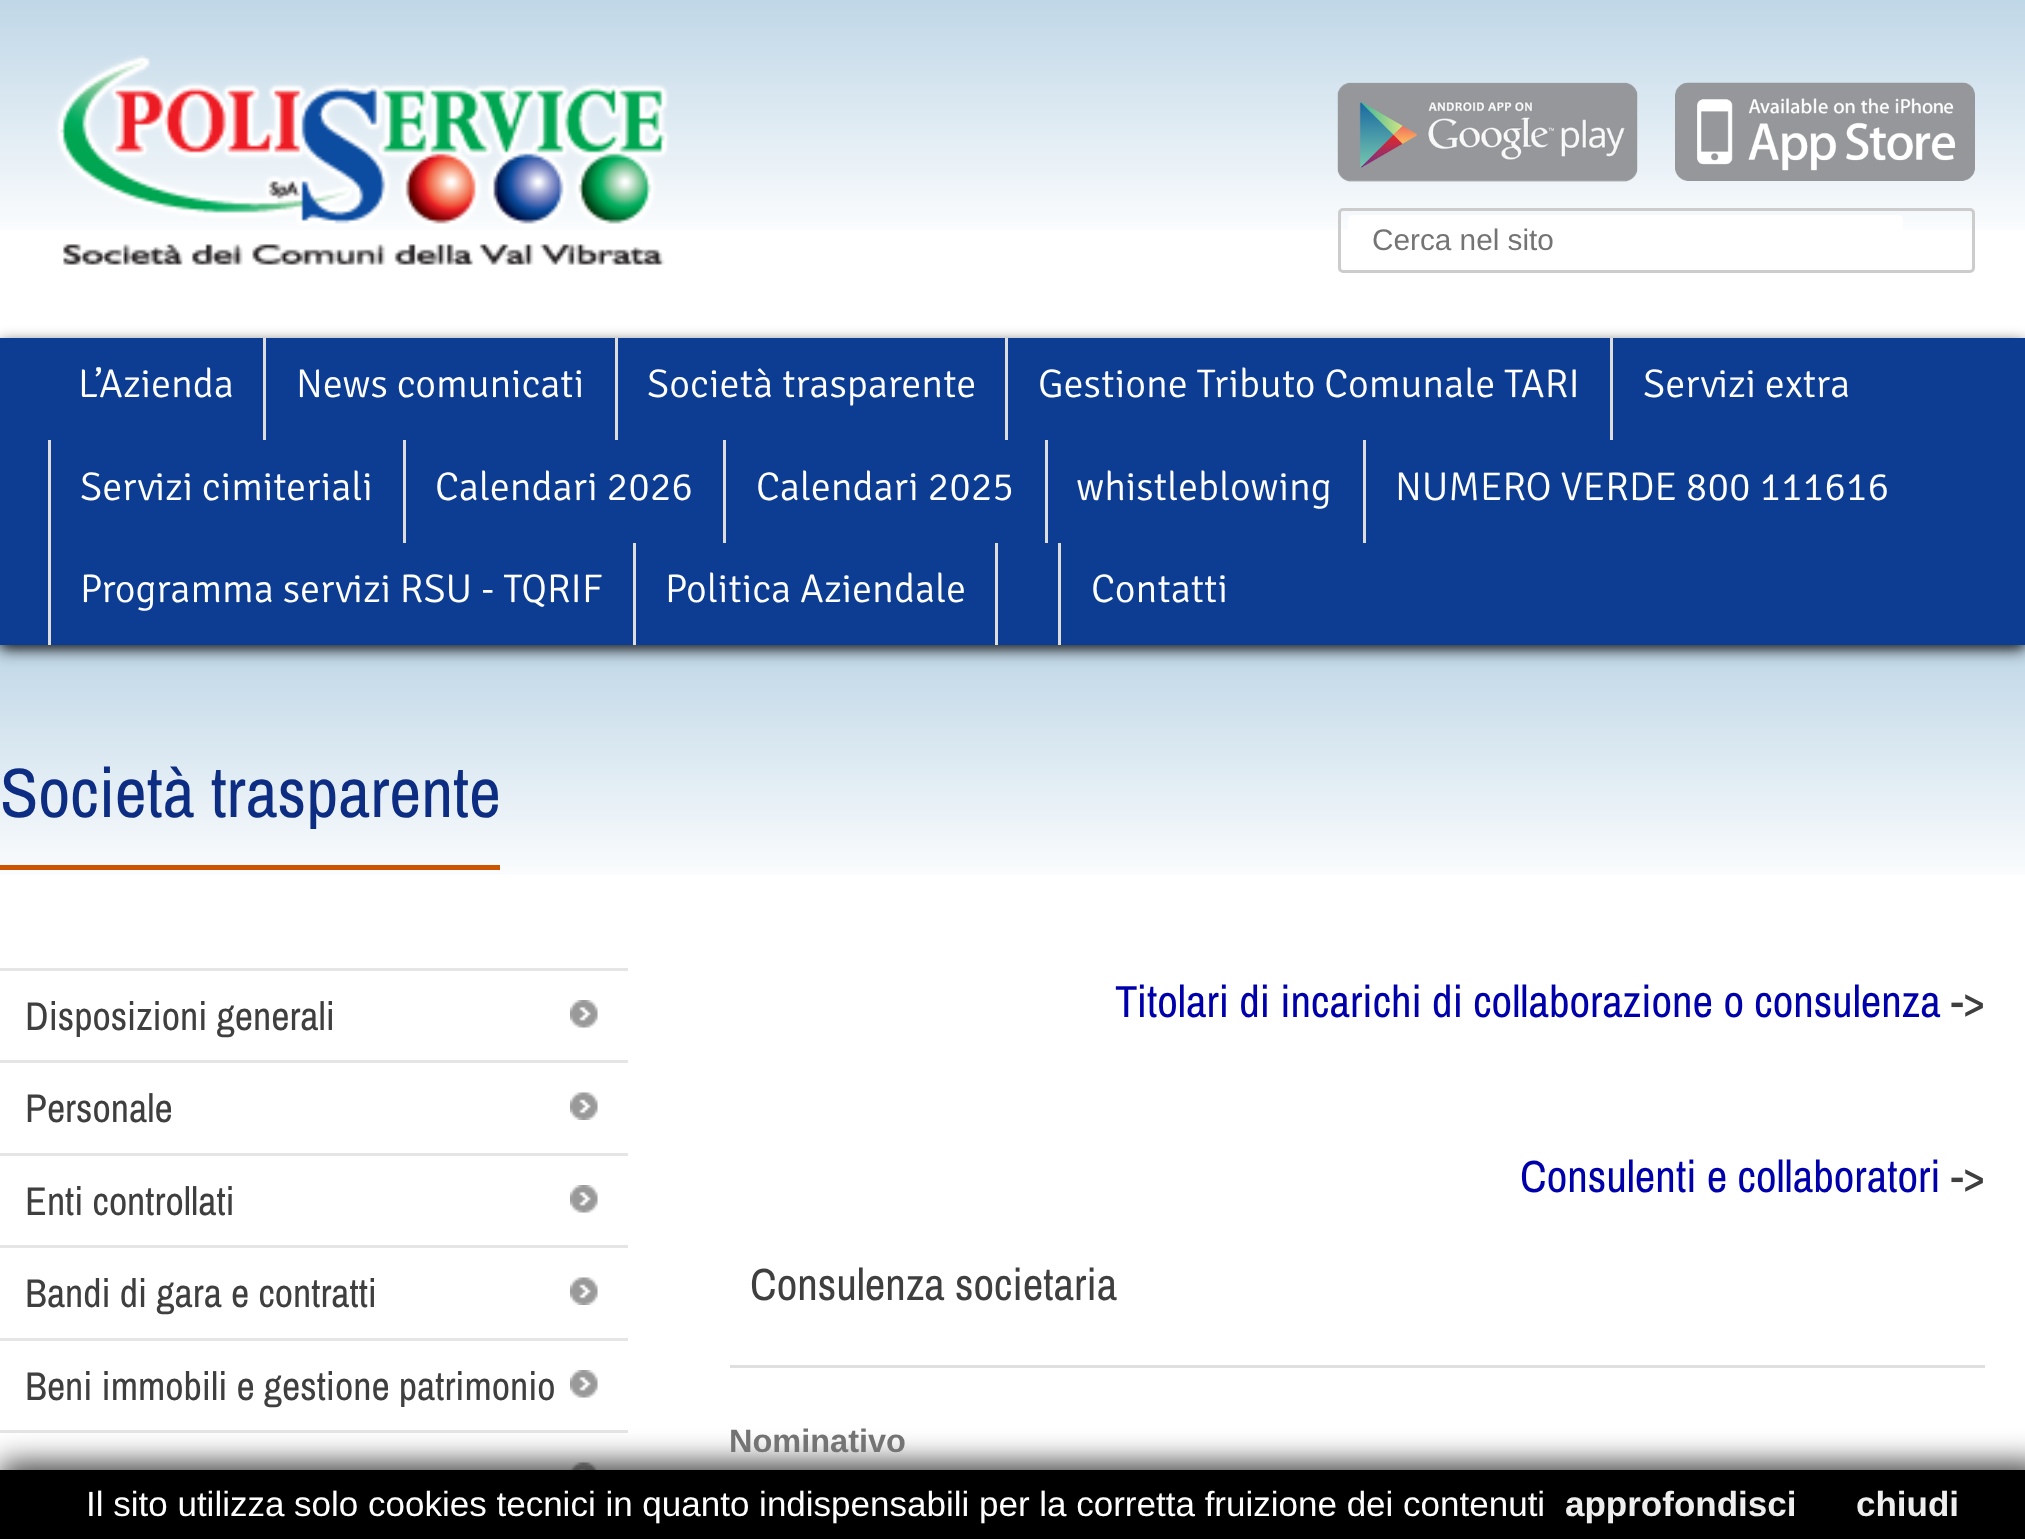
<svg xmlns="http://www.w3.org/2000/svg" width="2025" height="1539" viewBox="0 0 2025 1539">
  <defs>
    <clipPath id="clip1"><path d="M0 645h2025v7H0z"/></clipPath>
  </defs>
  <rect width="100%" height="100%" fill="#fff"/>
  <image x="0" y="645" width="2025" height="230" href="img/1.png"/>
  <g clip-path="url(#clip1)">
    <path d="M0 0h2025v645H0z" fill="#0000004d" filter="blur(5px)"/>
  </g>
  <image x="0" y="0" width="2025" height="230" href="img/1.png"/>
  <image x="55" y="55" width="615" height="210" href="img/2.png"/>
  <image x="1337" y="82" width="301" height="100" href="img/3.png"/>
  <image x="1675" y="82" width="300" height="99" href="img/4.png"/>
  <rect x="1339.5" y="209.5" width="634" height="62" rx="3.5" fill="none" stroke="#ccc" stroke-width="3"/>
  <rect x="1348" y="215" width="555" height="50" rx="5" fill="#fff"/>
  <path d="M0 343h2025v307H0z" fill="#000000cc" filter="blur(7.5px)"/>
  <path d="M0 338h2025v307H0z" fill="#0c3d92"/>
  <path d="M263 338h3v102H263z" fill="#ddd"/>
  <path d="M615 338h3v102H615z" fill="#ddd"/>
  <path d="M1005 338h3v102H1005z" fill="#ddd"/>
  <path d="M1610 338h3v102H1610z" fill="#ddd"/>
  <path d="M48 440h3v205H48z" fill="#ddd"/>
  <path d="M403 440h3v103H403z" fill="#ddd"/>
  <path d="M723 440h3v103H723z" fill="#ddd"/>
  <path d="M1045 440h3v103H1045z" fill="#ddd"/>
  <path d="M1363 440h3v103H1363z" fill="#ddd"/>
  <path d="M633 543h3v102H633z" fill="#ddd"/>
  <path d="M995 543h3v102H995z" fill="#ddd"/>
  <path d="M1058 543h3v102H1058z" fill="#ddd"/>
  <path d="M0 865h500v5H0z" fill="#c50"/>
  <path d="M0 968h628v3H0z" fill="#e5e5e5"/>
  <image x="570" y="1000" width="28" height="28" href="img/5.png"/>
  <path d="M0 1060h628v3H0z" fill="#e5e5e5"/>
  <image x="570" y="1092" width="28" height="28" href="img/6.png"/>
  <path d="M0 1153h628v3H0z" fill="#e5e5e5"/>
  <image x="570" y="1185" width="28" height="28" href="img/5.png"/>
  <path d="M0 1245h628v3H0z" fill="#e5e5e5"/>
  <image x="570" y="1277" width="28" height="28" href="img/6.png"/>
  <path d="M0 1338h628v3H0z" fill="#e5e5e5"/>
  <image x="570" y="1370" width="28" height="28" href="img/5.png"/>
  <path d="M0 1430h628v3H0z" fill="#e5e5e5"/>
  <image x="570" y="1462" width="28" height="8" href="img/7.png"/>
  <path d="M730 1365h1255v3H730z" fill="#dfdfdf"/>
  <path d="M0 1463h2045v70H0z" fill="#000000bf" filter="blur(15px)"/>
  <path d="M0 1470h2025v69H0z" fill="#000"/>
  <text x="1372" y="250" font-family="Liberation Sans" font-size="29.75" fill="#747474">Cerca nel sito</text>
  <g font-family="Signika" font-size="40" font-weight="300" fill="#fff">
    <text x="78" y="397">L’Azienda</text>
    <text x="296" y="397">News comunicati</text>
    <text x="647" y="397">Società trasparente</text>
    <text x="1038" y="397">Gestione Tributo Comunale TARI</text>
    <text x="1643" y="397">Servizi extra</text>
    <text x="80" y="500">Servizi cimiteriali</text>
    <text x="435" y="500">Calendari 2026</text>
    <text x="756" y="500">Calendari 2025</text>
    <text x="1076" y="500">whistleblowing</text>
    <text x="1395" y="500">NUMERO VERDE 800 111616</text>
    <text x="80" y="602">Programma servizi RSU - TQRIF</text>
    <text x="665" y="602">Politica Aziendale</text>
    <text x="1091" y="602">Contatti</text>
  </g>
  <text x="0" y="817" font-family="Archivo Narrow" font-size="70" fill="#0c2d82">Società trasparente</text>
  <g font-family="Archivo Narrow" font-size="40" fill="#3f3f3f">
    <text x="25" y="1030">Disposizioni generali</text>
    <text x="25" y="1122">Personale</text>
    <text x="25" y="1215">Enti controllati</text>
    <text x="25" y="1307">Bandi di gara e contratti</text>
    <text x="25" y="1400">Beni immobili e gestione patrimonio</text>
  </g>
  <text x="1115" y="1017" font-family="Archivo Narrow" font-size="45" fill="#00a">Titolari di incarichi di collaborazione o consulenza</text>
  <text x="1951" y="1017" font-family="Archivo Narrow" font-size="45" fill="#3f3f3f">-&gt;</text>
  <text x="1520" y="1192" font-family="Archivo Narrow" font-size="45" fill="#00a">Consulenti e collaboratori</text>
  <g font-family="Archivo Narrow" font-size="45" fill="#3f3f3f">
    <text x="1951" y="1192">-&gt;</text>
    <text x="750" y="1300">Consulenza societaria</text>
  </g>
  <text x="729" y="1452" font-family="Liberation Sans" font-size="32.5" font-weight="bold" fill="#747474">Nominativo</text>
  <text x="86" y="1516" font-family="Liberation Sans" font-size="35" fill="#fff">Il sito utilizza solo cookies tecnici in quanto indispensabili per la corretta fruizione dei contenuti</text>
  <g font-family="Liberation Sans" font-size="35" font-weight="bold" fill="#eee">
    <text x="1565" y="1516">approfondisci</text>
    <text x="1856" y="1516">chiudi</text>
  </g>
</svg>
